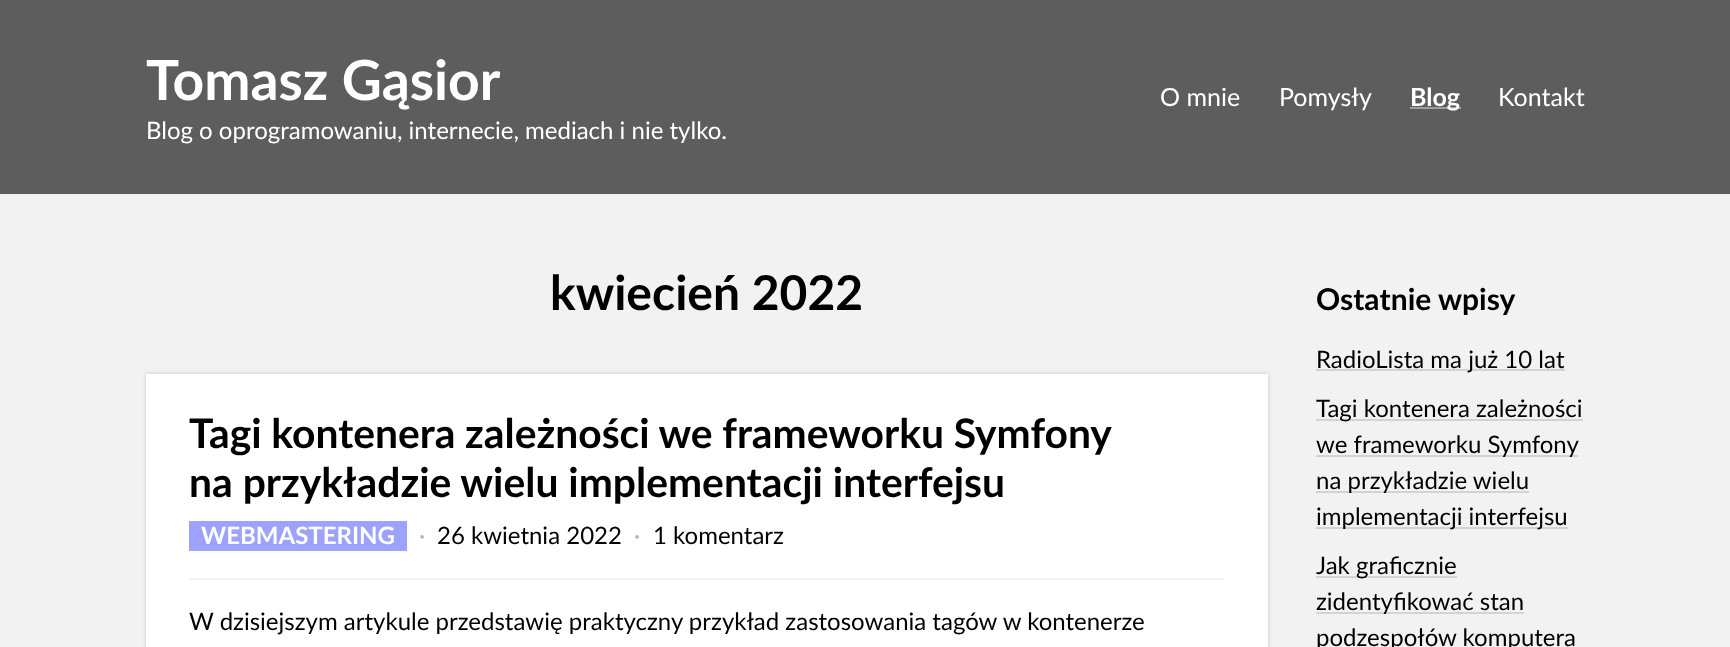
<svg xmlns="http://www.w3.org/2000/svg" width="1730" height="647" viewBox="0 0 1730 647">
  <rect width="100%" height="100%" fill="#f2f2f2"/>
  <path d="M0 0h1730v194H0z" fill="#5d5d5e"/>
  <path d="M1410 107h51v2H1410z" fill="#9e9e9e"/>
  <path d="M146 374h1122v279H146z" fill="#0000002e" filter="blur(2px)"/>
  <path d="M146 374h1122v273H146z" fill="#fff"/>
  <path d="M189 578h1035v2H189z" fill="#f2f2f2"/>
  <path d="M189 521h218v30H189z" fill="#9da2ff"/>
  <path d="M1316 369h249v2H1316z" fill="#d3d3d3"/>
  <path d="M1316 419h267v2H1316z" fill="#d3d3d3"/>
  <path d="M1316 455h262v2H1316z" fill="#d3d3d3"/>
  <path d="M1316 491h213v2H1316z" fill="#d3d3d3"/>
  <path d="M1316 527h252v2H1316z" fill="#d3d3d3"/>
  <path d="M1316 576h141v2H1316z" fill="#d3d3d3"/>
  <path d="M1316 612h208v2H1316z" fill="#d3d3d3"/>
  <text x="146" y="100" font-family="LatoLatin" font-size="55.25" font-weight="bold" fill="#fff">Tomasz Gąsior</text>
  <text x="146" y="139" font-family="LatoLatin" font-size="24" fill="#fff">Blog o oprogramowaniu, internecie, mediach i nie tylko.</text>
  <g font-family="LatoLatin" font-size="25" fill="#fff">
    <text x="1160" y="106">O mnie</text>
    <text x="1279" y="106">Pomysły</text>
  </g>
  <text x="1410" y="106" font-family="LatoLatin" font-size="25" font-weight="bold" fill="#fff">Blog</text>
  <text x="1498" y="106" font-family="LatoLatin" font-size="25" fill="#fff">Kontakt</text>
  <text x="550" y="310" font-family="LatoLatin" font-size="48" font-weight="bold" fill="#000">kwiecień 2022</text>
  <g font-family="LatoLatin" font-size="40.8" font-weight="bold" fill="#000">
    <text x="189" y="448" word-spacing="-0.25">Tagi kontenera zależności we frameworku Symfony</text>
    <text x="189" y="497">na przykładzie wielu implementacji interfejsu</text>
  </g>
  <text x="201" y="544" font-family="LatoLatin" font-size="24" font-weight="bold" fill="#fff">WEBMASTERING</text>
  <text x="419" y="544" font-family="LatoLatin" font-size="24" fill="#b3b3b3">·</text>
  <text x="437" y="544" font-family="LatoLatin" font-size="24" fill="#000">26 kwietnia 2022</text>
  <text x="634" y="544" font-family="LatoLatin" font-size="24" fill="#b3b3b3">·</text>
  <g font-family="LatoLatin" font-size="24" fill="#000">
    <text x="653" y="544">1 komentarz</text>
    <text x="189" y="630">W dzisiejszym artykule przedstawię praktyczny przykład zastosowania tagów w kontenerze</text>
  </g>
  <text x="1316" y="310" font-family="LatoLatin" font-size="30" font-weight="bold" fill="#000">Ostatnie wpisy</text>
  <g font-family="LatoLatin" font-size="24" fill="#000">
    <text x="1316" y="368">RadioLista ma już 10 lat</text>
    <text x="1316" y="417">Tagi kontenera zależności</text>
    <text x="1316" y="453">we frameworku Symfony</text>
    <text x="1316" y="489">na przykładzie wielu</text>
    <text x="1316" y="525">implementacji interfejsu</text>
    <text x="1316" y="574">Jak graficznie</text>
    <text x="1316" y="610">zidentyfikować stan</text>
    <text x="1316" y="646">podzespołów komputera</text>
  </g>
</svg>
